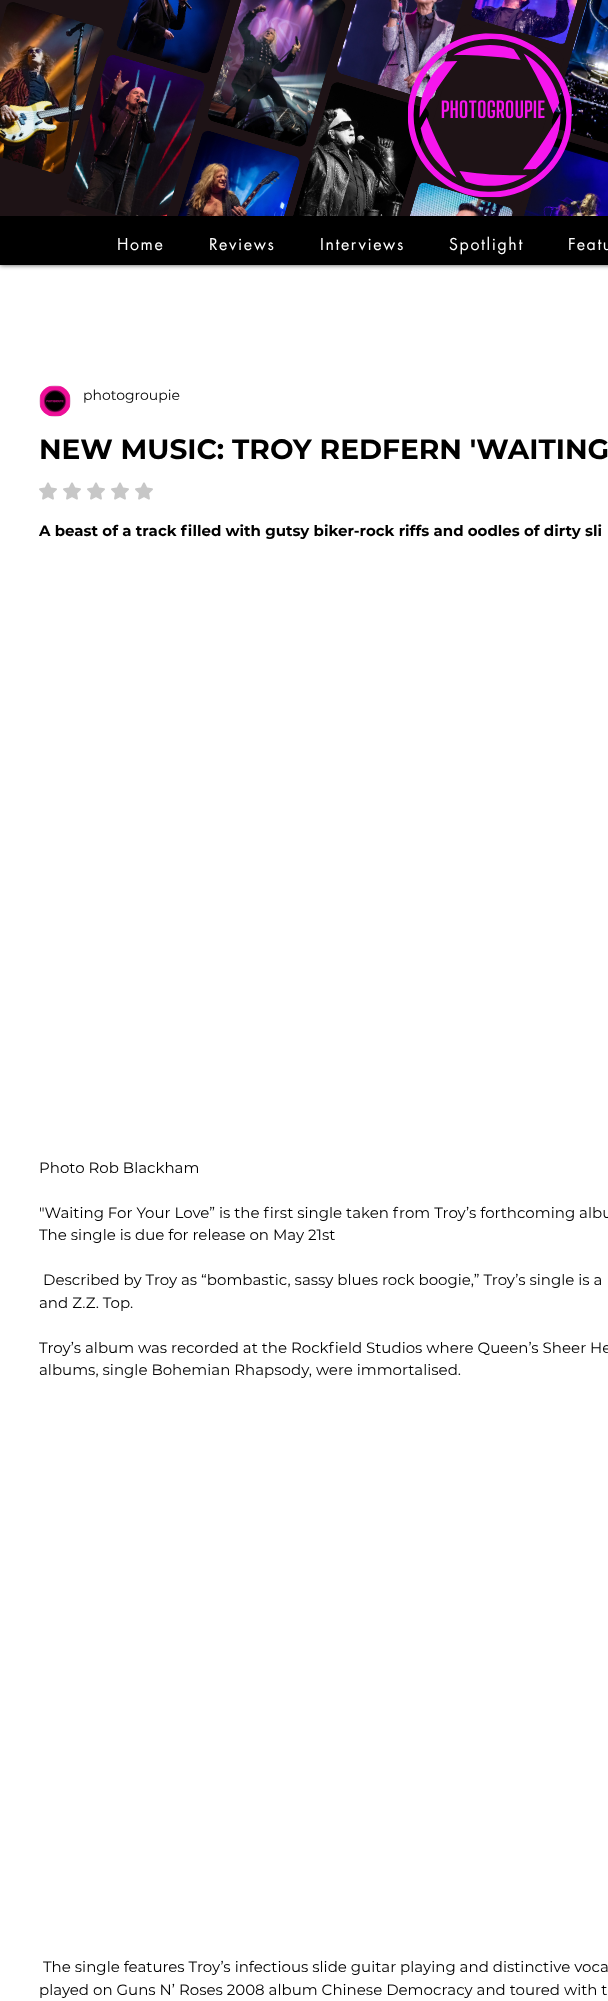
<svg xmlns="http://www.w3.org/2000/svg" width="608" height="2001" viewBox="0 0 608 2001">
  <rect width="100%" height="100%" fill="#fff"/>
  <path d="M0 0h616v265H0z" fill="#000000b3" filter="blur(2.5px)"/>
  <path d="M0 216h608v49H0z" fill="#000"/>
  <image x="0" y="0" width="608" height="216" href="img/1.png"/>
  <image x="39" y="385" width="32" height="32" href="img/2.png"/>
  <image x="39" y="482" width="18" height="18" href="img/3.png"/>
  <image x="63" y="482" width="18" height="18" href="img/3.png"/>
  <image x="87" y="482" width="18" height="18" href="img/3.png"/>
  <image x="111" y="482" width="18" height="18" href="img/3.png"/>
  <image x="135" y="482" width="18" height="18" href="img/3.png"/>
  <g font-family="futura" font-size="16" letter-spacing="1.6" fill="#fff">
    <text x="117" y="250">Home</text>
    <text x="209" y="250">Reviews</text>
    <text x="320" y="250">Interviews</text>
    <text x="449" y="250">Spotlight</text>
    <text x="568" y="250">Featu</text>
  </g>
  <text x="83" y="400" font-family="Montserrat" font-size="14" fill="#000">photogroupie</text>
  <text x="39" y="459" font-family="Montserrat" font-size="28" font-weight="bold" fill="#000">NEW MUSIC: TROY REDFERN 'WAITING</text>
  <text x="39" y="536" font-family="Montserrat" font-size="15" font-weight="bold" fill="#000">A beast of a track filled with gutsy biker-rock riffs and oodles of dirty sli</text>
  <g font-family="Montserrat" font-size="15" fill="#000">
    <text x="39" y="1173">Photo Rob Blackham</text>
    <text x="39" y="1218">"Waiting For Your Love” is the first single taken from Troy’s forthcoming albu</text>
    <text x="39" y="1240">The single is due for release on May 21st</text>
    <text x="43" y="1285">Described by Troy as “bombastic, sassy blues rock boogie,” Troy’s single is a</text>
    <text x="39" y="1308">and Z.Z. Top.</text>
    <text x="39" y="1353">Troy’s album was recorded at the Rockfield Studios where Queen’s Sheer He</text>
    <text x="39" y="1375">albums, single Bohemian Rhapsody, were immortalised.</text>
    <text x="43" y="1972">The single features Troy’s infectious slide guitar playing and distinctive voca</text>
    <text x="39" y="1995">played on Guns N’ Roses 2008 album Chinese Democracy and toured with t</text>
  </g>
</svg>
